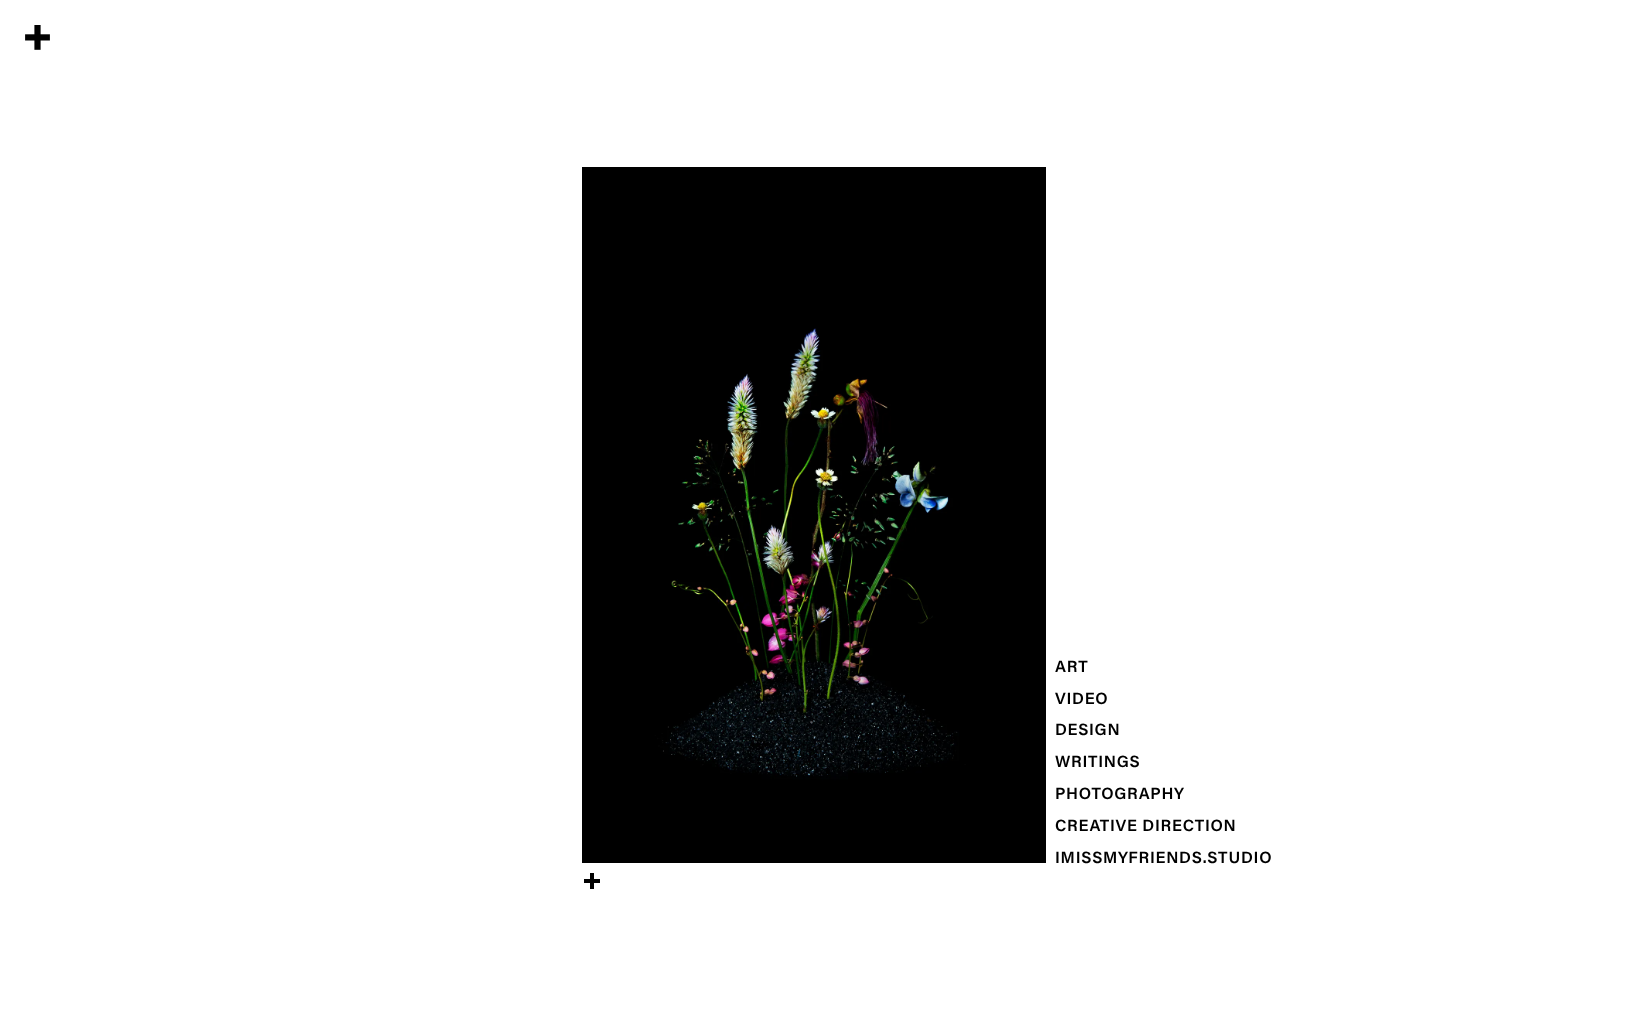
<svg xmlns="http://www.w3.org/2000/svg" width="1628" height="1030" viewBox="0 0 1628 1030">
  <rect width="100%" height="100%" fill="#fff"/>
  <image x="25" y="25" width="25" height="25" href="img/1.png"/>
  <image x="582" y="167" width="464" height="696" href="img/2.png"/>
  <image x="584" y="873" width="16" height="16" href="img/3.png"/>
  <g font-family="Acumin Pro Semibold" font-size="16.25" font-weight="600" letter-spacing="0.7" fill="#000">
    <text x="1055" y="672">ART</text>
    <text x="1055" y="704">VIDEO</text>
    <text x="1055" y="735">DESIGN</text>
    <text x="1055" y="767">WRITINGS</text>
    <text x="1055" y="799">PHOTOGRAPHY</text>
    <text x="1055" y="831">CREATIVE DIRECTION</text>
    <text x="1055" y="863">IMISSMYFRIENDS.STUDIO</text>
  </g>
</svg>
